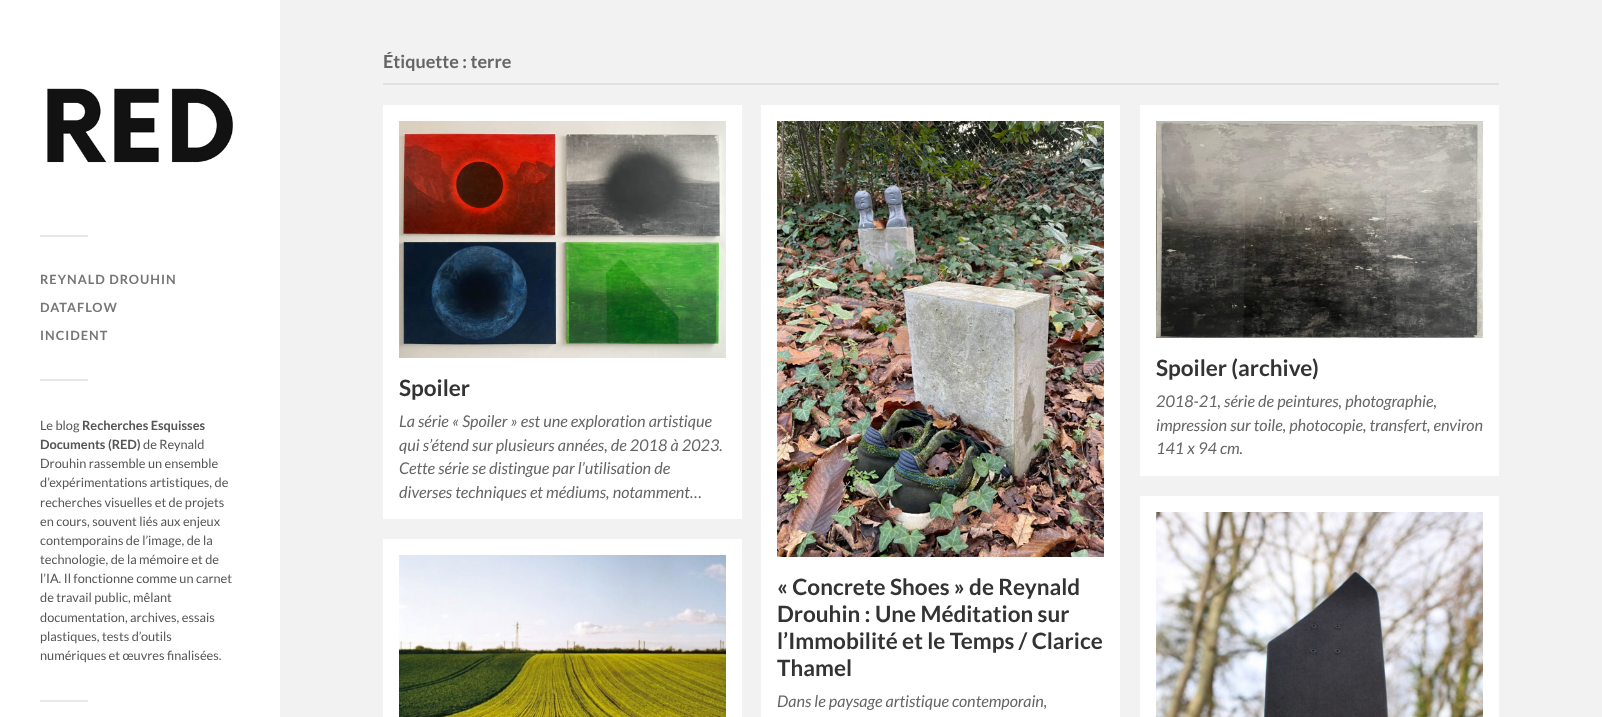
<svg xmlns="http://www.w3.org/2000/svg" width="1602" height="717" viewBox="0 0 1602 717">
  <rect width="100%" height="100%" fill="#f2f2f2"/>
  <path d="M0 0h280v717H0z" fill="#fff"/>
  <image x="47" y="88" width="186" height="75" href="img/1.png"/>
  <path d="M40 235h48v2H40z" fill="#e7e7e7"/>
  <path d="M40 379h48v2H40z" fill="#e7e7e7"/>
  <path d="M40 700h48v2H40z" fill="#e7e7e7"/>
  <path d="M383 83h1116v2H383z" fill="#e1e1e1"/>
  <path d="M383 105h359v414H383z" fill="#fff"/>
  <image x="399" y="121" width="327" height="237" href="img/2.png"/>
  <path d="M1140 105h359v371H1140z" fill="#fff"/>
  <image x="1156" y="121" width="327" height="217" href="img/3.png"/>
  <path d="M383 539h359v178H383z" fill="#fff"/>
  <image x="399" y="555" width="327" height="162" href="img/4.png"/>
  <path d="M761 105h359v612H761z" fill="#fff"/>
  <image x="777" y="121" width="327" height="436" href="img/5.png"/>
  <path d="M1140 496h359v221H1140z" fill="#fff"/>
  <image x="1156" y="512" width="327" height="205" href="img/6.png"/>
  <g font-family="Lato" font-size="12.75" font-weight="bold" letter-spacing="1" fill="#767676">
    <text x="40" y="284">REYNALD DROUHIN</text>
    <text x="40" y="312">DATAFLOW</text>
    <text x="40" y="340">INCIDENT</text>
  </g>
  <text x="40" y="430" font-family="Lato" font-size="12.75" fill="#555">Le blog</text>
  <g font-family="Lato" font-size="12.75" font-weight="bold" fill="#555">
    <text x="82" y="430">Recherches Esquisses</text>
    <text x="40" y="449">Documents (RED)</text>
  </g>
  <g font-family="Lato" font-size="12.75" fill="#555">
    <text x="143" y="449">de Reynald</text>
    <text x="40" y="468">Drouhin rassemble un ensemble</text>
    <text x="40" y="487">d’expérimentations artistiques, de</text>
    <text x="40" y="507">recherches visuelles et de projets</text>
    <text x="40" y="526">en cours, souvent liés aux enjeux</text>
    <text x="40" y="545">contemporains de l’image, de la</text>
    <text x="40" y="564">technologie, de la mémoire et de</text>
    <text x="40" y="583">l’IA. Il fonctionne comme un carnet</text>
    <text x="40" y="602">de travail public, mêlant</text>
    <text x="40" y="622">documentation, archives, essais</text>
    <text x="40" y="641">plastiques, tests d’outils</text>
    <text x="40" y="660">numériques et œuvres finalisées.</text>
  </g>
  <text x="383" y="68" font-family="Lato" font-size="18" font-weight="bold" fill="#666">Étiquette : terre</text>
  <text x="399" y="396" font-family="Lato" font-size="22.5" font-weight="bold" fill="#333">Spoiler</text>
  <g font-family="Lato" font-size="16.2" font-style="italic" fill="#666">
    <text x="399" y="427">La série « Spoiler » est une exploration artistique</text>
    <text x="399" y="451">qui s’étend sur plusieurs années, de 2018 à 2023.</text>
    <text x="399" y="474">Cette série se distingue par l’utilisation de</text>
    <text x="399" y="498">diverses techniques et médiums, notamment…</text>
  </g>
  <text x="1156" y="376" font-family="Lato" font-size="22.5" font-weight="bold" fill="#333">Spoiler (archive)</text>
  <g font-family="Lato" font-size="16.2" font-style="italic" fill="#666">
    <text x="1156" y="407">2018-21, série de peintures, photographie,</text>
    <text x="1156" y="431">impression sur toile, photocopie, transfert, environ</text>
    <text x="1156" y="454">141 x 94 cm.</text>
  </g>
  <g font-family="Lato" font-size="22.5" font-weight="bold" fill="#333">
    <text x="777" y="595">« Concrete Shoes » de Reynald</text>
    <text x="777" y="622">Drouhin : Une Méditation sur</text>
    <text x="777" y="649">l’Immobilité et le Temps / Clarice</text>
    <text x="777" y="676">Thamel</text>
  </g>
  <text x="777" y="707" font-family="Lato" font-size="16.2" font-style="italic" fill="#666">Dans le paysage artistique contemporain,</text>
</svg>
